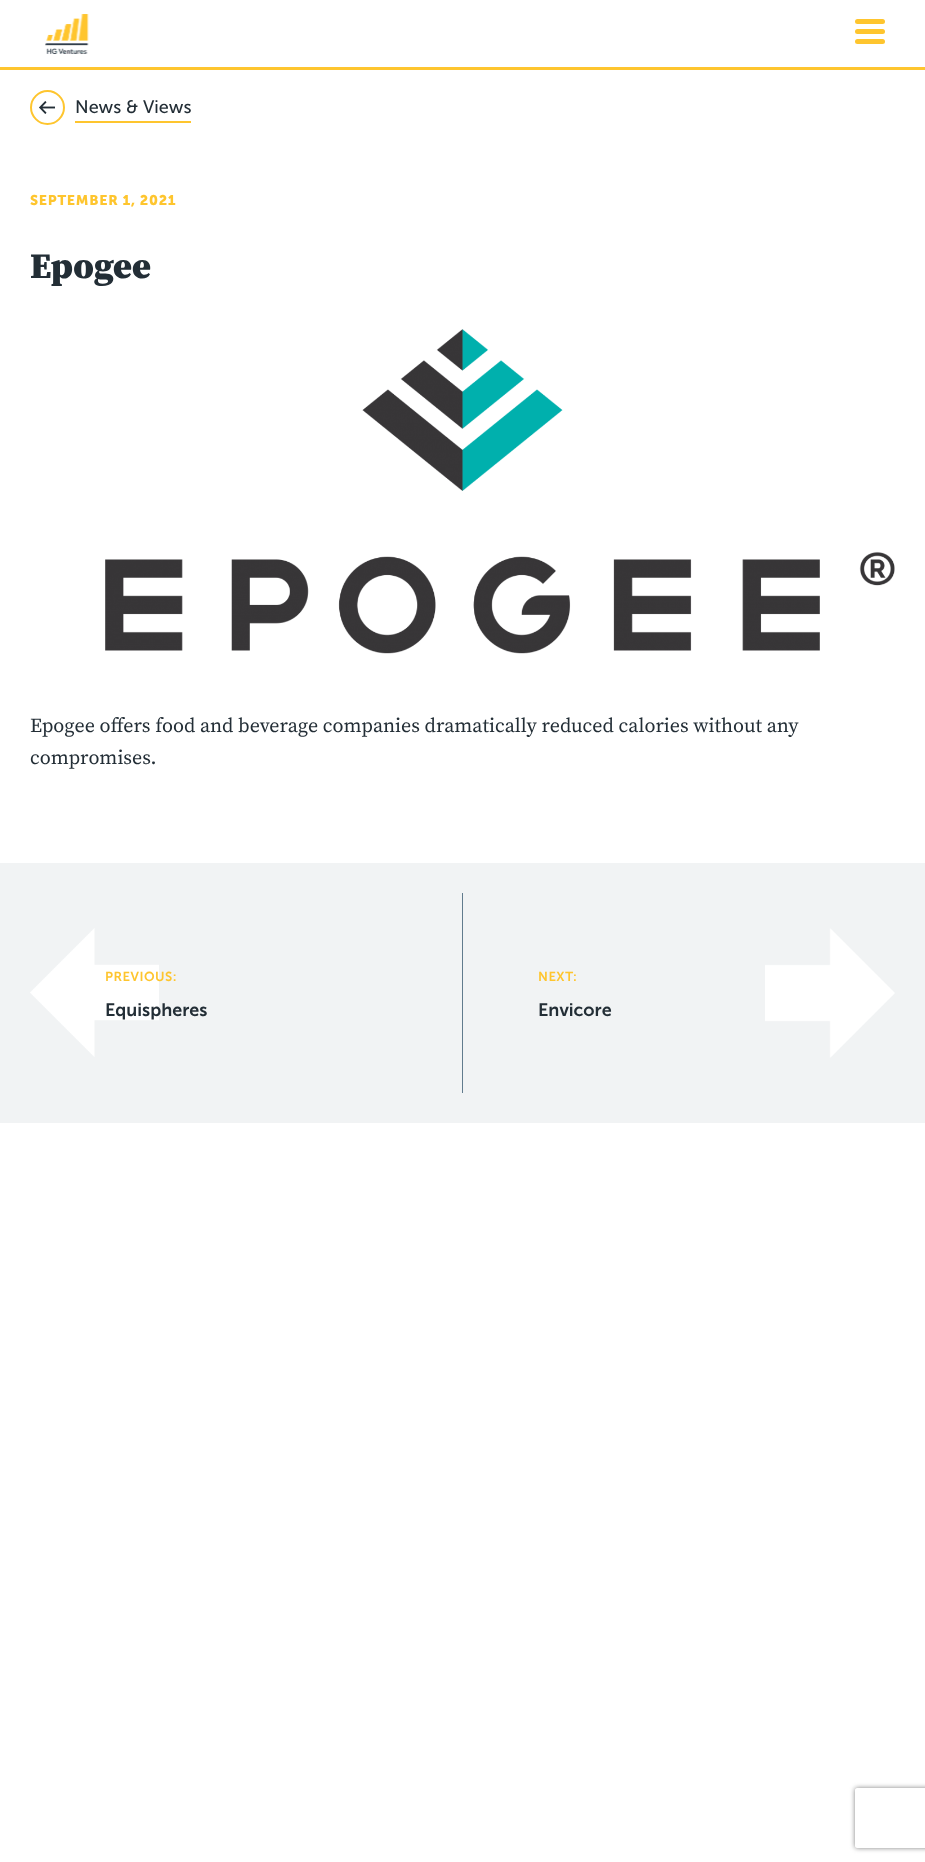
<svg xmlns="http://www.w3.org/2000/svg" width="925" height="1862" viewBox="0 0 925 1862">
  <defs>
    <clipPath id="clip1"><path d="M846 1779H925V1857H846ZM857 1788H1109C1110 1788 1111 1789 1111 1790V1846C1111 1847 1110 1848 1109 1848H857C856 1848 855 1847 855 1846V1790C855 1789 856 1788 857 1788Z" clip-rule="evenodd"/></clipPath>
  </defs>
  <rect width="100%" height="100%" fill="#fff"/>
  <path d="M0 67h925v3H0z" fill="#fec52e"/>
  <image x="45" y="14" width="44" height="40" href="img/1.png"/>
  <rect x="855" y="19" width="30" height="5" rx="2.5" fill="#fec52e"/>
  <rect x="855" y="29" width="30" height="5" rx="2.5" fill="#fec52e"/>
  <rect x="855" y="39" width="30" height="5" rx="2.5" fill="#fec52e"/>
  <path d="M47.5 124C38.5 124 31 116.5 31 107.5C31 98.5 38.5 91 47.5 91C56.5 91 64 98.5 64 107.5C64 116.5 56.5 124 47.5 124Z" fill="none" stroke="#fec52e" stroke-width="2"/>
  <image x="39" y="101" width="16" height="13" href="img/2.png"/>
  <path d="M75 121h116v2H75z" fill="#fec52e"/>
  <image x="105" y="329" width="790" height="325" href="img/3.png"/>
  <path d="M0 863h925v260H0z" fill="#f1f3f4"/>
  <image x="30" y="928" width="129" height="129" href="img/4.png"/>
  <path d="M462 893h1v200H462z" fill="#617b8d"/>
  <image x="765" y="928" width="130" height="130" href="img/5.png"/>
  <g clip-path="url(#clip1)">
    <rect x="855" y="1788" width="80" height="60" rx="2" fill="#808080" filter="blur(2.5px)"/>
  </g>
  <text x="75" y="113" font-family="'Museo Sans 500'" font-size="18" fill="#232e36">News &amp; Views</text>
  <text x="30" y="205" font-family="'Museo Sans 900'" font-size="14" font-weight="bold" letter-spacing="0.75" fill="#fec52e">SEPTEMBER 1, 2021</text>
  <text x="30" y="278" font-family="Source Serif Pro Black" font-size="36" font-weight="900" fill="#232e36">Epogee</text>
  <g font-family="Source Serif Pro" font-size="20" fill="#232e36">
    <text x="30" y="732">Epogee offers food and beverage companies dramatically reduced calories without any</text>
    <text x="30" y="764">compromises.</text>
  </g>
  <text x="105" y="981" font-family="'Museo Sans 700'" font-size="13" font-weight="600" letter-spacing="0.5" fill="#fec52e">PREVIOUS:</text>
  <text x="105" y="1016" font-family="'Museo Sans 700'" font-size="18" font-weight="600" fill="#232e36">Equispheres</text>
  <text x="538" y="981" font-family="'Museo Sans 700'" font-size="13" font-weight="600" letter-spacing="0.5" fill="#fec52e">NEXT:</text>
  <text x="538" y="1016" font-family="'Museo Sans 700'" font-size="18" font-weight="600" fill="#232e36">Envicore</text>
</svg>
